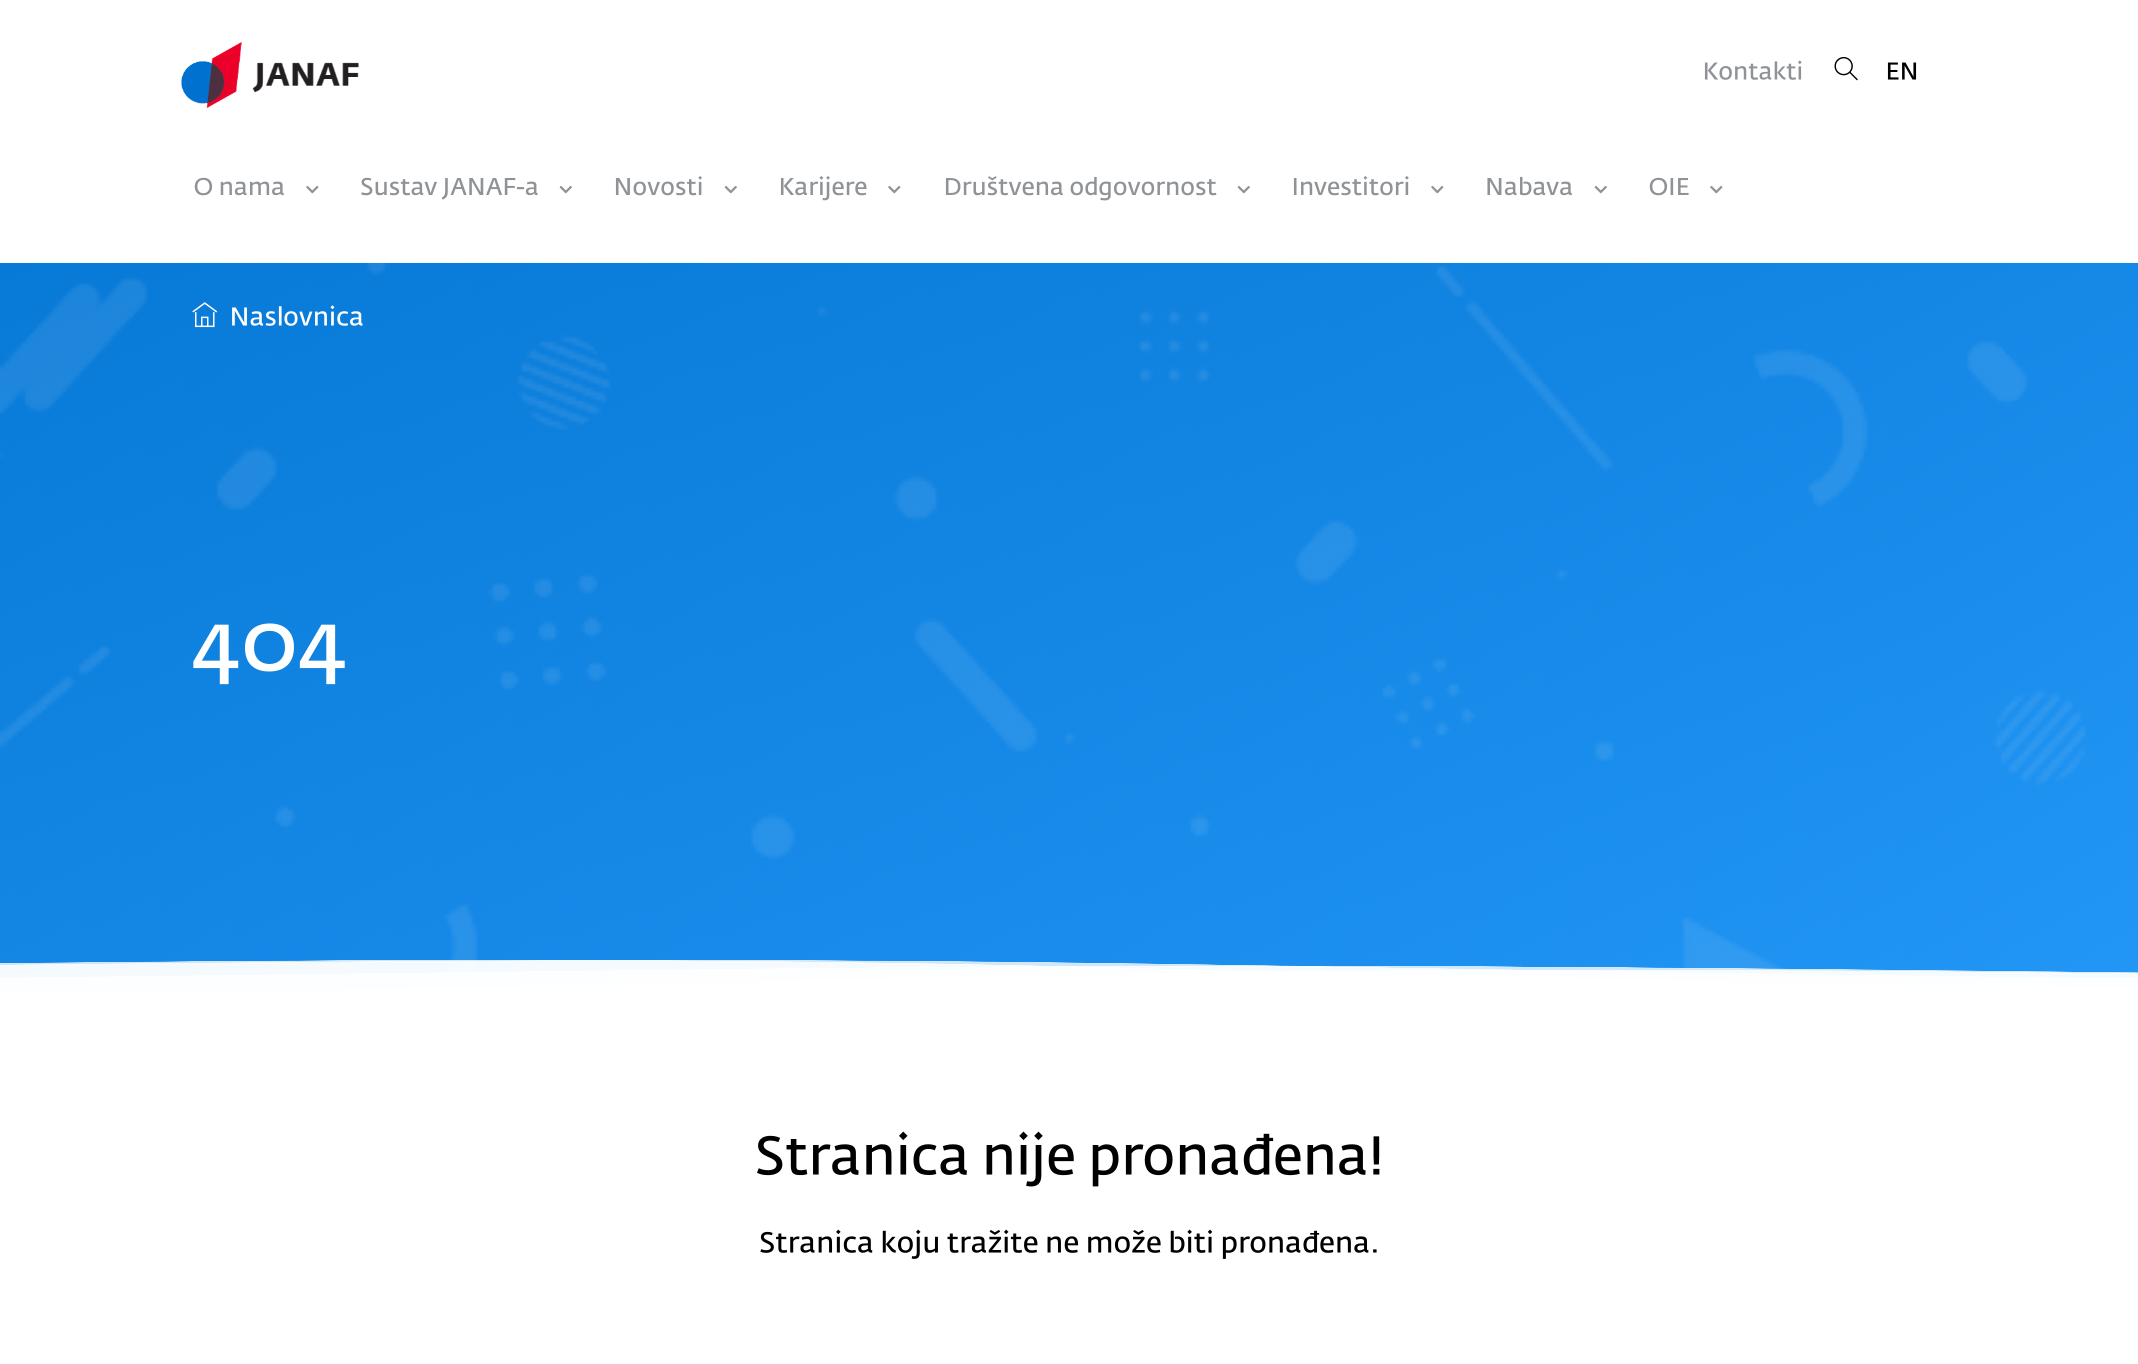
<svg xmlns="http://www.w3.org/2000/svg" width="2138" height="1364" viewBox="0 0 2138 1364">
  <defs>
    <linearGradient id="g1" gradientUnits="userSpaceOnUse" x1="633" y1="-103" x2="1506" y2="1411"><stop offset="0" stop-color="#0071ce"/><stop offset="1" stop-color="#2a9fff"/></linearGradient>
    <linearGradient id="g2" gradientUnits="userSpaceOnUse" x1="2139" y1="638" x2="0" y2="637"><stop offset="0.1" stop-color="#0071ce" stop-opacity="0.16"/><stop offset="1" stop-color="#2a9fff" stop-opacity="0.18"/></linearGradient>
  </defs>
  <rect width="100%" height="100%" fill="#fff"/>
  <image x="181" y="42" width="178" height="66" href="img/1.png"/>
  <image x="1704" y="60" width="98" height="20" href="img/2.png"/>
  <image x="1834" y="57" width="24" height="24" href="img/3.png"/>
  <image x="1887" y="62" width="30" height="18" href="img/4.png"/>
  <image x="194" y="177" width="90" height="19" href="img/5.png"/>
  <image x="306" y="185" width="13" height="9" href="img/6.png"/>
  <image x="361" y="177" width="177" height="23" href="img/7.png"/>
  <image x="559" y="185" width="13" height="9" href="img/8.png"/>
  <image x="615" y="176" width="87" height="20" href="img/9.png"/>
  <image x="724" y="185" width="13" height="9" href="img/8.png"/>
  <image x="780" y="176" width="87" height="25" href="img/10.png"/>
  <image x="888" y="185" width="13" height="9" href="img/6.png"/>
  <image x="945" y="176" width="272" height="25" href="img/11.png"/>
  <image x="1237" y="185" width="13" height="9" href="img/8.png"/>
  <image x="1293" y="176" width="116" height="20" href="img/12.png"/>
  <image x="1431" y="185" width="13" height="9" href="img/6.png"/>
  <image x="1487" y="176" width="85" height="20" href="img/13.png"/>
  <image x="1594" y="185" width="13" height="9" href="img/8.png"/>
  <image x="1649" y="177" width="40" height="19" href="img/14.png"/>
  <image x="1710" y="185" width="13" height="9" href="img/6.png"/>
  <path d="M0 263h2138v731H0z" fill="url(#g1)"/>
  <image x="0" y="263" width="2087" height="727" href="img/15.png"/>
  <path d="M0 263h2138v731H0z" fill="url(#g2)"/>
  <image x="192" y="302" width="26" height="26" href="img/16.png"/>
  <image x="232" y="305" width="131" height="21" href="img/17.png"/>
  <image x="193" y="623" width="152" height="62" href="img/18.png"/>
  <image x="0" y="960" width="2138" height="86" href="img/19.png"/>
  <image x="757" y="1131" width="623" height="56" href="img/20.png"/>
  <image x="760" y="1229" width="617" height="30" href="img/21.png"/>
</svg>
